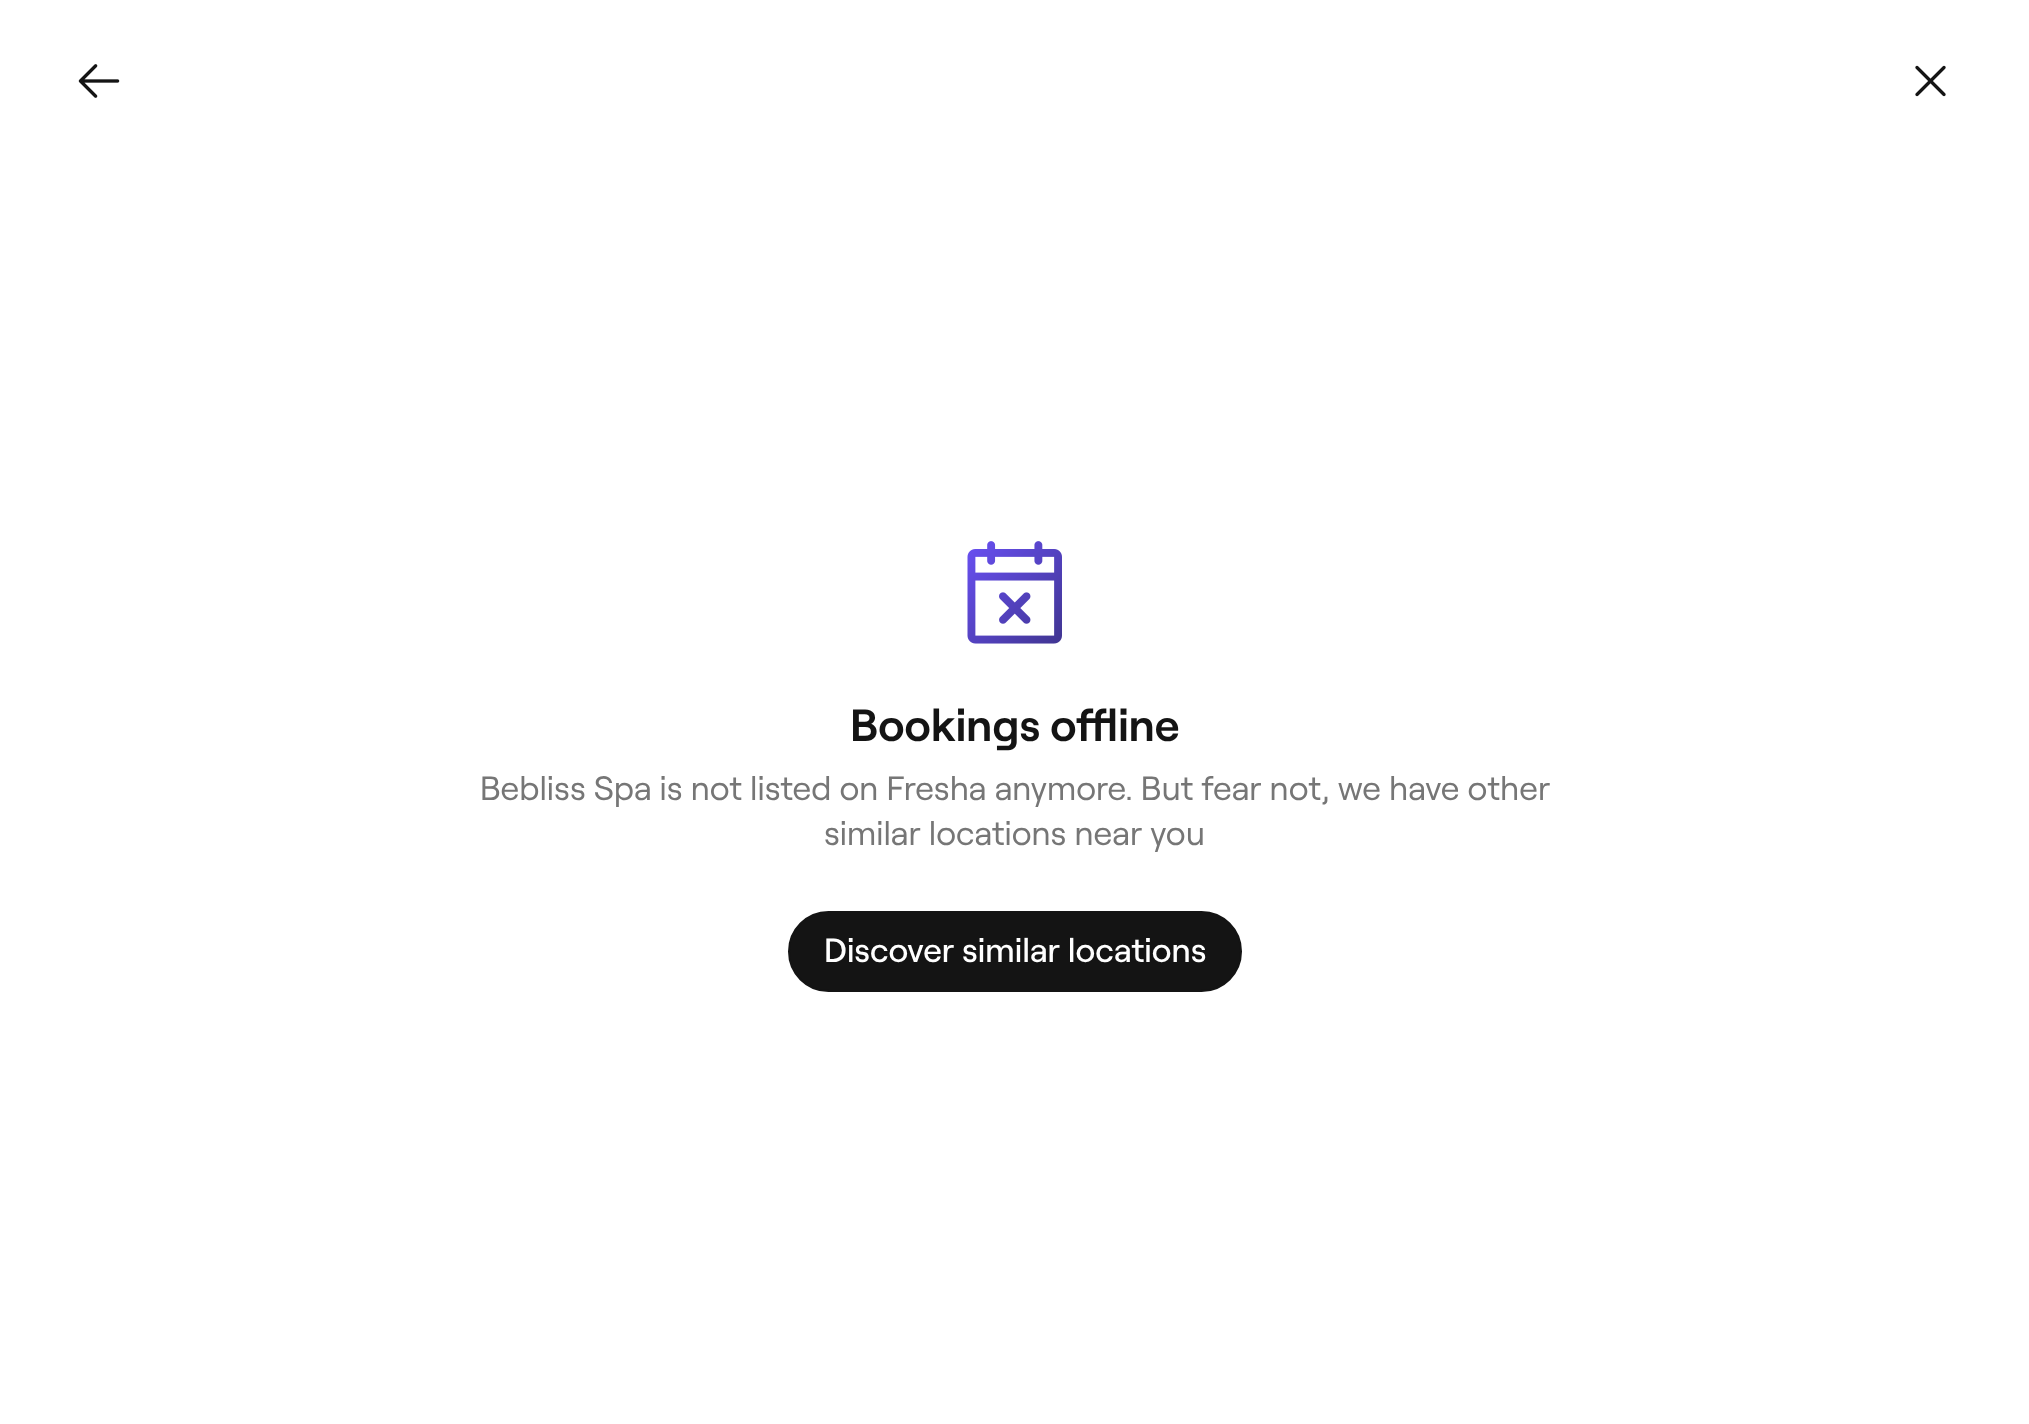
<svg xmlns="http://www.w3.org/2000/svg" width="2029" height="1424" viewBox="0 0 2029 1424">
  <rect width="100%" height="100%" fill="#fff"/>
  <image x="78" y="64" width="42" height="34" href="img/1.png"/>
  <image x="1915" y="65" width="31" height="32" href="img/2.png"/>
  <image x="967" y="541" width="95" height="103" href="img/3.png"/>
  <rect x="789" y="912" width="452" height="79" rx="39.5" fill="#141414" stroke="#141414" stroke-width="2"/>
  <text x="850" y="741" font-family="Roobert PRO" font-size="45" font-weight="600" fill="#141414">Bookings offline</text>
  <g font-family="Roobert PRO" font-size="33.75" fill="#767676">
    <text x="480" y="800">Bebliss Spa is not listed on Fresha anymore. But fear not, we have other</text>
    <text x="824" y="845">similar locations near you</text>
  </g>
  <text x="824" y="962" font-family="Roobert PRO" font-size="33.75" font-weight="500" fill="#fff">Discover similar locations</text>
</svg>
